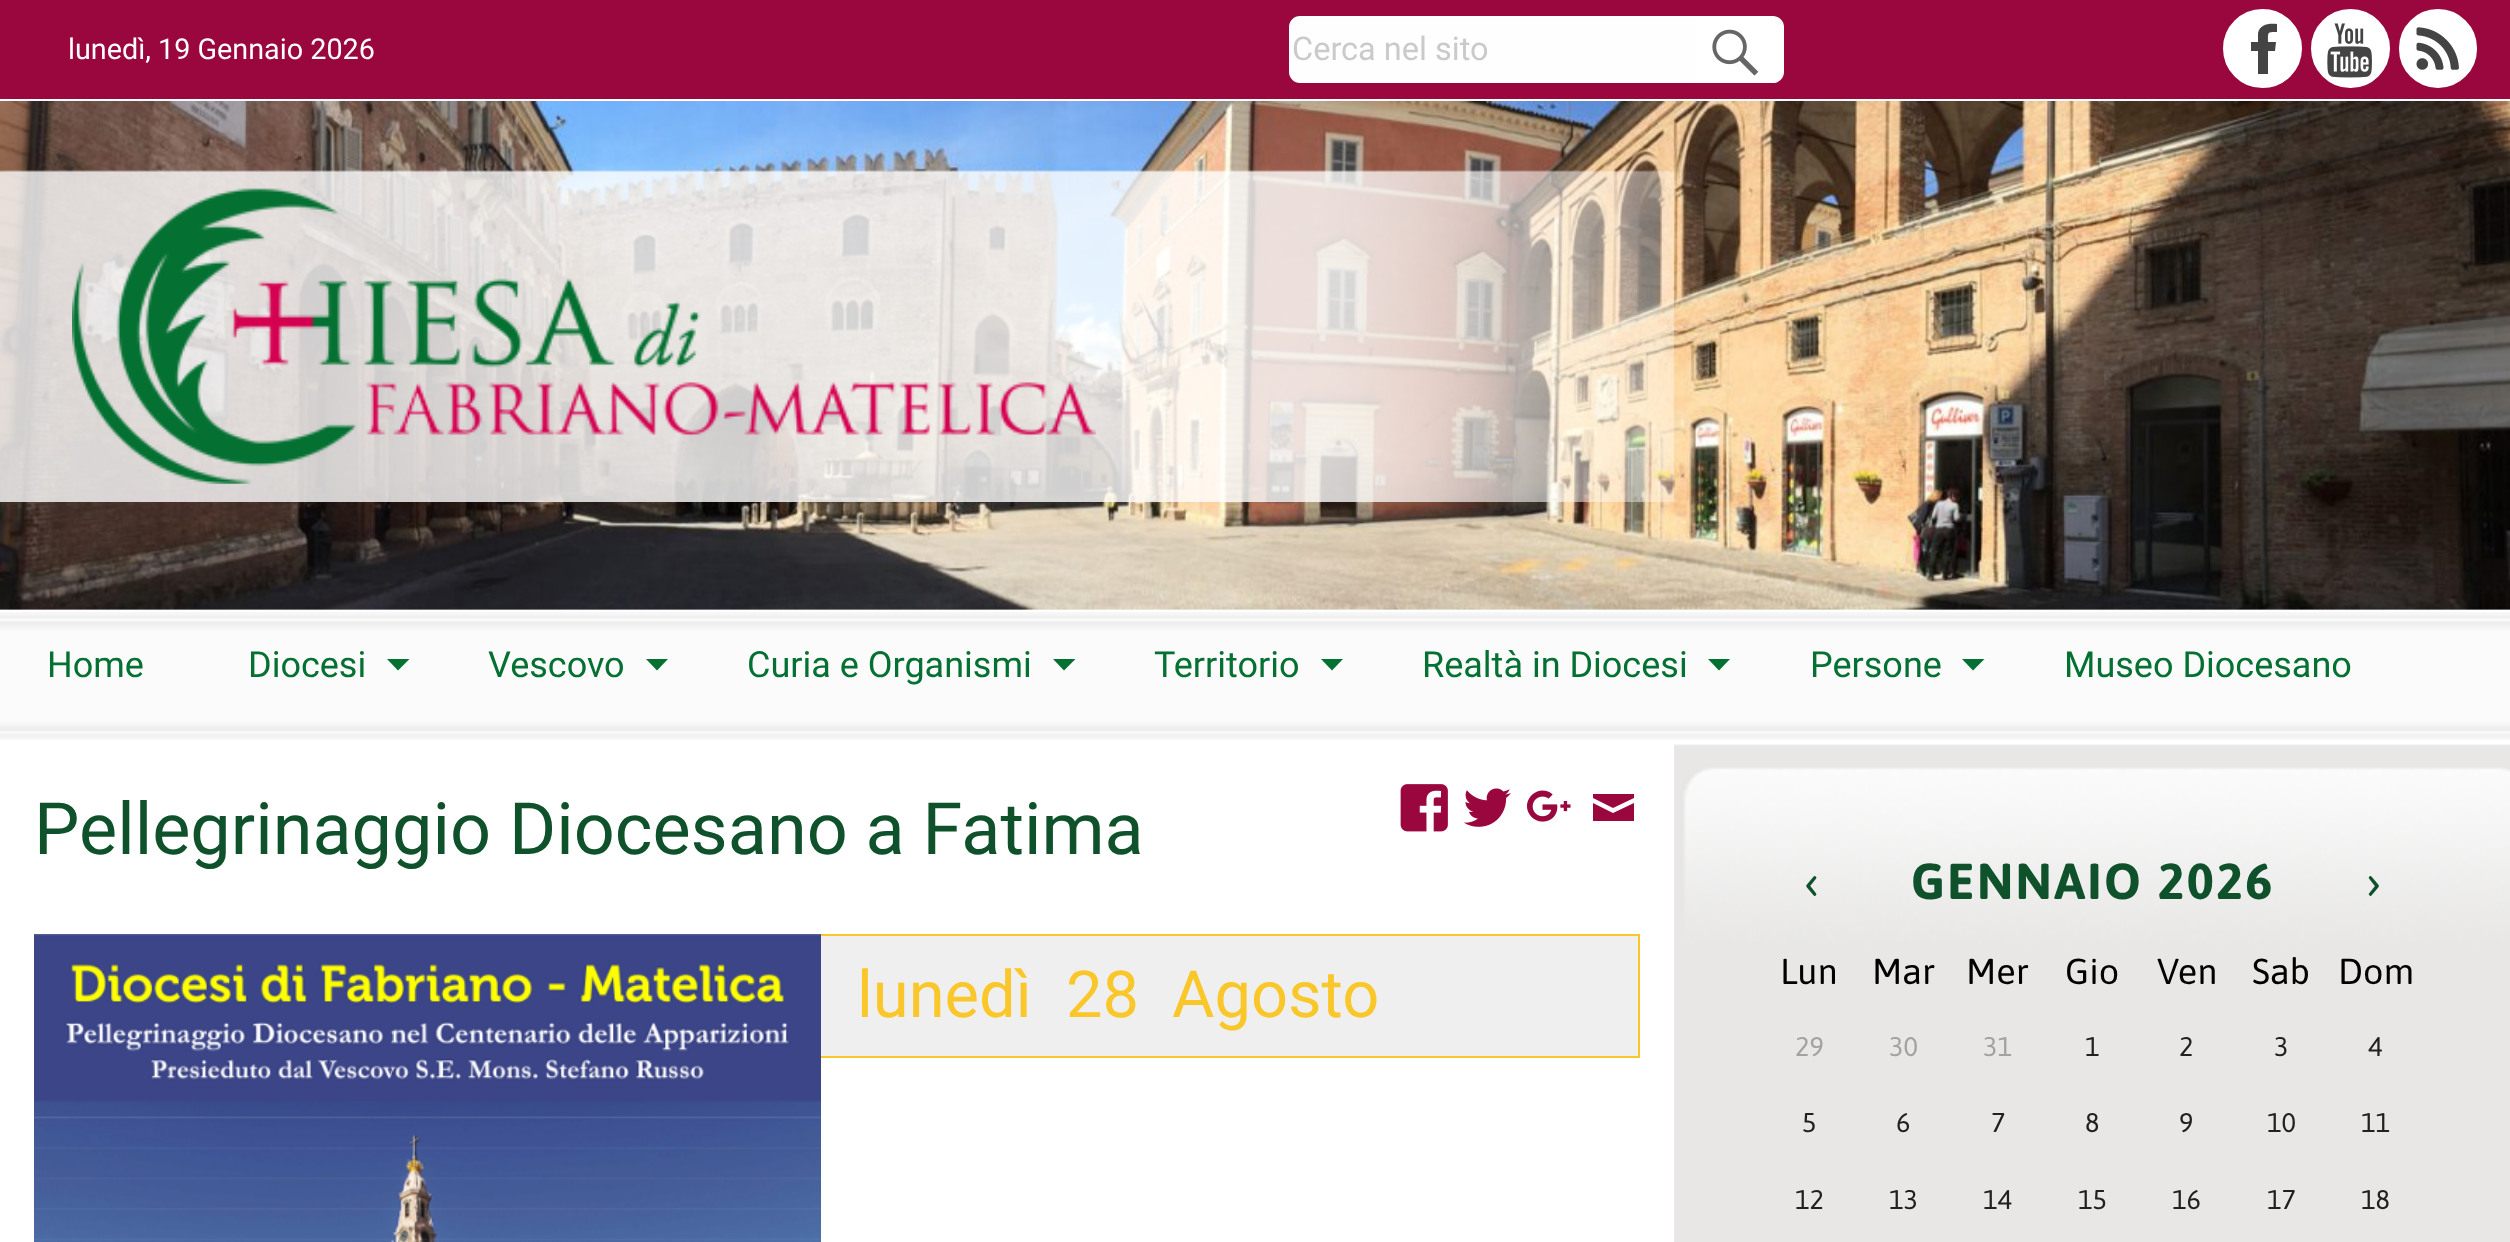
<svg xmlns="http://www.w3.org/2000/svg" width="2510" height="1242" viewBox="0 0 2510 1242">
  <rect width="100%" height="100%" fill="#fff"/>
  <path d="M0 0h2510v99H0z" fill="#99073e"/>
  <path d="M1300 17H1696V82H1300C1294.5 82 1290 77.5 1290 72V27C1290 21.5 1294.5 17 1300 17Z" fill="#fefefe" stroke="#fff" stroke-width="2"/>
  <path d="M1697 16H1773C1779 16 1784 21 1784 27V72C1784 78 1779 83 1773 83H1697Z" fill="#fff"/>
  <image x="1712" y="29" width="47" height="47" href="img/1.png"/>
  <circle cx="2262.5" cy="48.5" r="38.5" fill="#fff" stroke="#fff" stroke-width="2"/>
  <path d="M2277 24V32C2267 32 2268 32 2268 42H2276L2275 51H2268V74H2258V51H2251V42H2258V33C2260 24 2269 23 2277 24Z" fill="#444"/>
  <circle cx="2350.5" cy="48.5" r="38.5" fill="#fff" stroke="#fff" stroke-width="2"/>
  <image x="2327" y="23" width="45" height="55" href="img/2.png"/>
  <rect x="2400" y="10" width="76" height="77" rx="38" fill="#fff" stroke="#fff" stroke-width="2"/>
  <image x="2416" y="27" width="43" height="43" href="img/3.png"/>
  <image x="0" y="101" width="2510" height="509" href="img/4.png"/>
  <image x="0" y="170" width="1674" height="332" href="img/5.png"/>
  <image x="72" y="188" width="1024" height="296" href="img/6.png"/>
  <image x="0" y="612" width="2510" height="128" href="img/7.png"/>
  <path d="M387 659H409.5L398 670.5Z" fill="#047132"/>
  <path d="M646 659H668L657 670.5Z" fill="#047132"/>
  <path d="M1053 659H1075.5L1064 670.5Z" fill="#047132"/>
  <path d="M1321 659H1343L1332 670.5Z" fill="#047132"/>
  <path d="M1708 659H1730L1719 670.5Z" fill="#047132"/>
  <path d="M1962 659H1984.5L1973 670.5Z" fill="#047132"/>
  <path d="M821 936h817v120H821z" fill="#efefef"/>
  <path d="M35 935h1604v122H35z" fill="none" stroke="#fac72b" stroke-width="2"/>
  <image x="34" y="934" width="787" height="308" href="img/8.png"/>
  <image x="1400" y="784" width="48" height="48" href="img/9.png"/>
  <image x="1463" y="788" width="48" height="39" href="img/10.png"/>
  <image x="1527" y="790" width="44" height="32" href="img/11.png"/>
  <path d="M1593 794H1634V798L1613 808L1593 798ZM1593 803L1613 813L1634 803V821H1593Z" fill="#99073e"/>
  <image x="1674" y="744" width="836" height="498" href="img/12.png"/>
  <text x="68" y="59" font-family="Roboto" font-size="28.75" fill="#fff">lunedì, 19 Gennaio 2026</text>
  <text x="1292" y="60" font-family="Roboto" font-size="32.5" fill="#cacaca">Cerca nel sito</text>
  <g font-family="Roboto" font-size="36" fill="#047132">
    <text x="47" y="677">Home</text>
    <text x="248" y="677">Diocesi</text>
    <text x="488" y="677">Vescovo</text>
    <text x="747" y="677">Curia e Organismi</text>
    <text x="1154" y="677">Territorio</text>
    <text x="1422" y="677">Realtà in Diocesi</text>
    <text x="1810" y="677">Persone</text>
    <text x="2064" y="677">Museo Diocesano</text>
  </g>
  <text x="34" y="854" font-family="Roboto" font-size="72" fill="#0f512b">Pellegrinaggio Diocesano a Fatima</text>
  <g font-family="Roboto" font-size="65" fill="#fac72b">
    <text x="857" y="1017">lunedì</text>
    <text x="1066" y="1017">28</text>
    <text x="1172" y="1017">Agosto</text>
  </g>
  <text x="1804" y="899" font-family="Asap" font-size="50.5" fill="#0f512b">‹</text>
  <text x="1911" y="899" font-family="Asap" font-size="50.5" font-weight="bold" letter-spacing="2.25" fill="#0f512b">GENNAIO 2026</text>
  <text x="2366" y="899" font-family="Asap" font-size="50.5" fill="#0f512b">›</text>
  <g font-family="Asap" font-size="36" fill="#000">
    <text x="1780" y="984">Lun</text>
    <text x="1872" y="984">Mar</text>
    <text x="1966" y="984">Mer</text>
    <text x="2065" y="984">Gio</text>
    <text x="2157" y="984">Ven</text>
    <text x="2252" y="984">Sab</text>
    <text x="2338" y="984">Dom</text>
  </g>
  <g font-family="Asap" font-size="27" fill="#a2a2a1">
    <text x="1795" y="1056">29</text>
    <text x="1889" y="1056">30</text>
    <text x="1983" y="1056">31</text>
  </g>
  <g font-family="Asap" font-size="27" fill="#212121">
    <text x="2085" y="1056">1</text>
    <text x="2179" y="1056">2</text>
    <text x="2274" y="1056">3</text>
    <text x="2368" y="1056">4</text>
    <text x="1802" y="1132">5</text>
    <text x="1896" y="1132">6</text>
    <text x="1991" y="1132">7</text>
    <text x="2085" y="1132">8</text>
    <text x="2179" y="1132">9</text>
    <text x="2267" y="1132">10</text>
    <text x="2361" y="1132">11</text>
    <text x="1795" y="1209">12</text>
    <text x="1889" y="1209">13</text>
    <text x="1983" y="1209">14</text>
    <text x="2078" y="1209">15</text>
    <text x="2172" y="1209">16</text>
    <text x="2267" y="1209">17</text>
    <text x="2361" y="1209">18</text>
  </g>
</svg>
